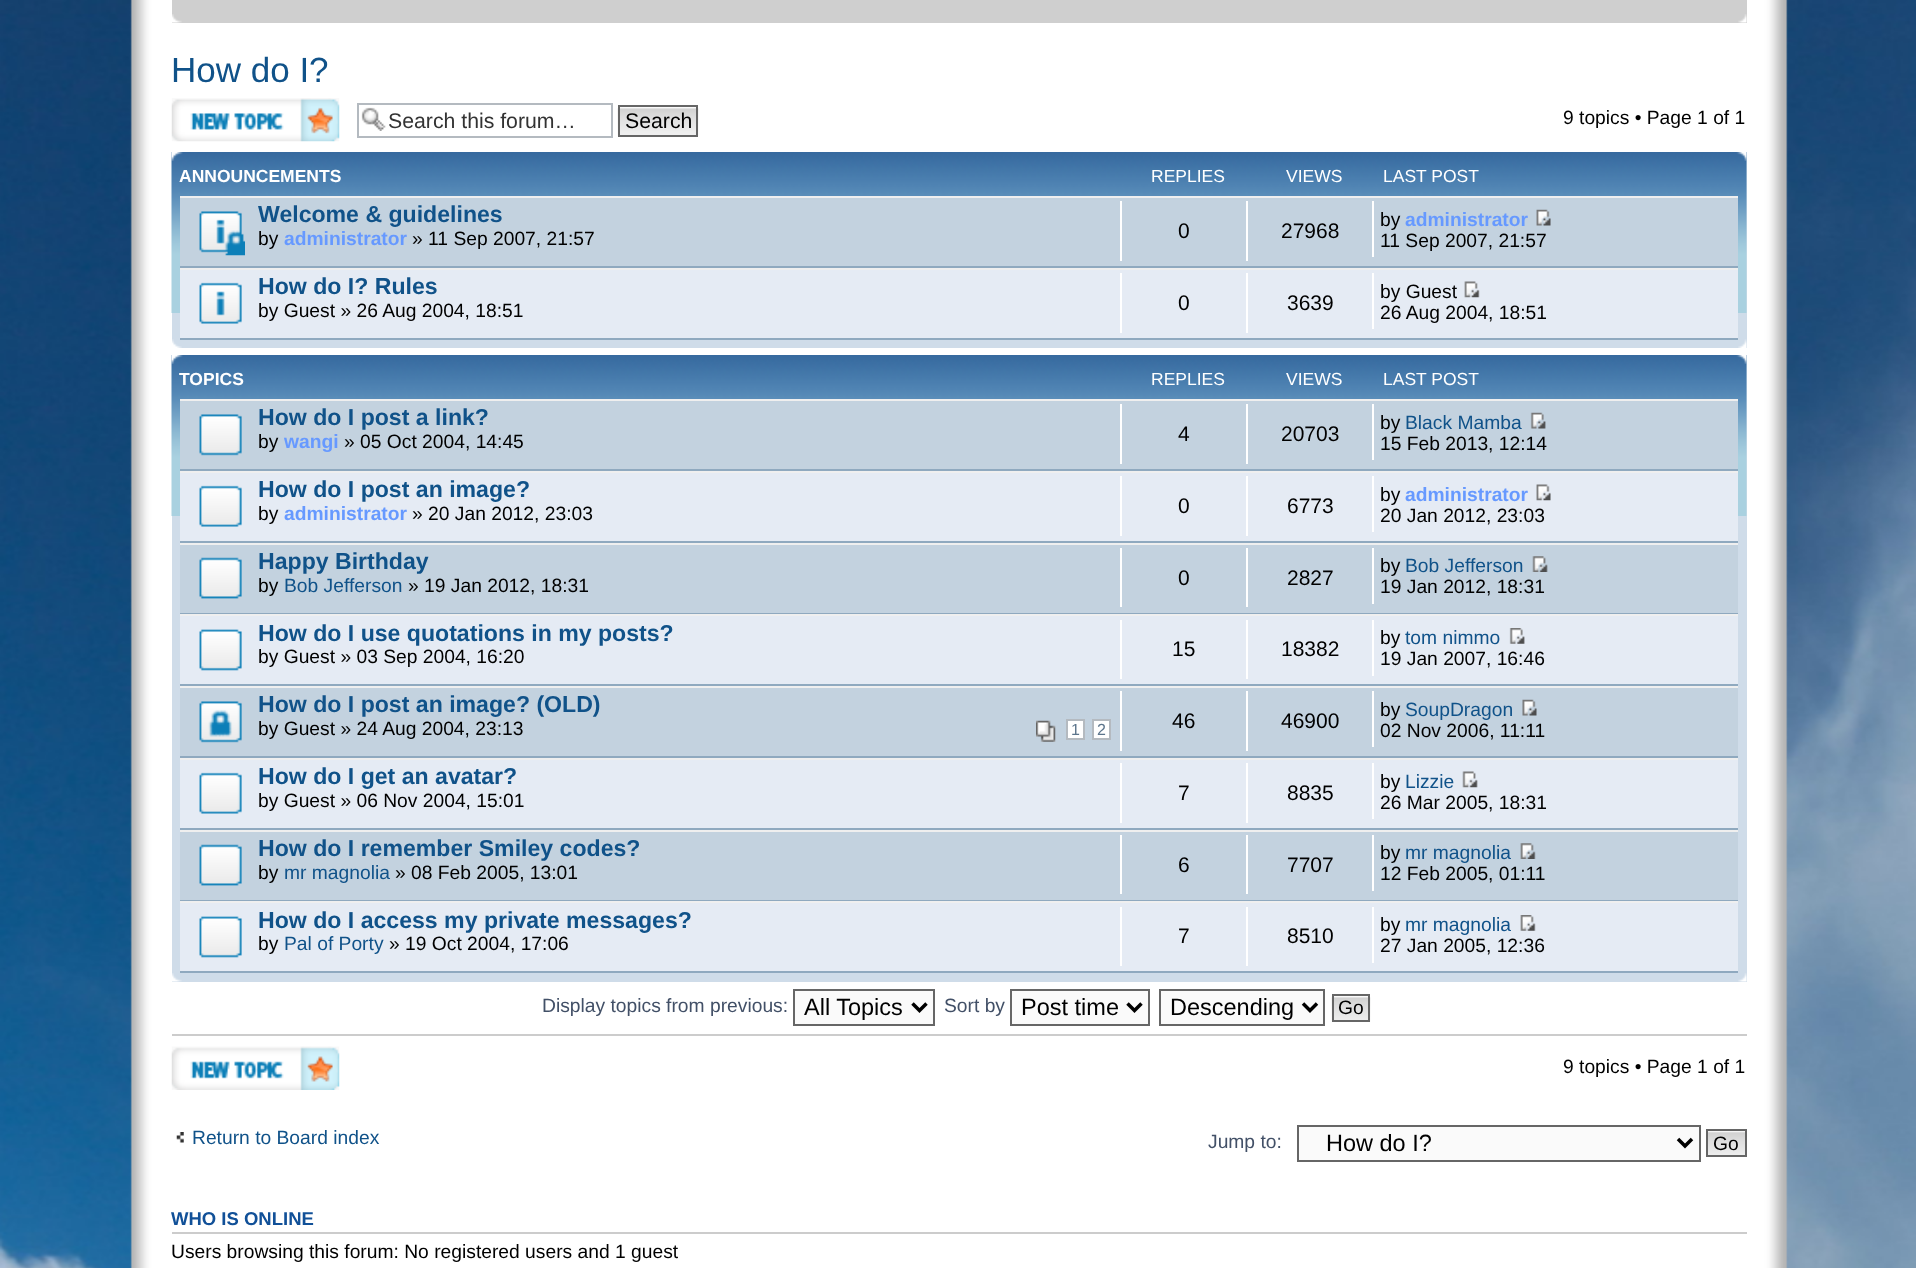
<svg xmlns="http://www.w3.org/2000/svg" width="1916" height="1268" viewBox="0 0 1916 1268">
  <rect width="100%" height="100%" fill="#fff"/>
  <image x="0" y="0" width="1916" height="1268" href="img/1.png"/>
  <image x="130" y="0" width="1658" height="1268" href="img/2.png"/>
  <path d="M172 0h1575v23H172z" fill="#cfcfcf"/>
  <image x="172" y="14" width="10" height="9" href="img/3.png"/>
  <image x="1738" y="14" width="9" height="9" href="img/4.png"/>
  <image x="171" y="98" width="169" height="44" href="img/5.png"/>
  <image x="361" y="107" width="25" height="24" href="img/6.png"/>
  <path d="M358 104h254v33H358z" fill="none" stroke="#b4bac0" stroke-width="2"/>
  <path d="M620 107h76v1H620z" fill="#fafafa"/>
  <image x="617" y="108" width="82" height="28" href="img/7.png"/>
  <path d="M619 106h78v30H619z" fill="none" stroke="#666" stroke-width="2"/>
  <path d="M172 152h1575v196H172z" fill="#cfdce9"/>
  <image x="171" y="152" width="1576" height="161" href="img/8.png"/>
  <image x="171" y="152" width="12" height="9" href="img/9.png"/>
  <image x="1736" y="152" width="11" height="9" href="img/10.png"/>
  <path d="M180 198h1558v68H180z" fill="#c3d2df"/>
  <path d="M180 196h1558v2H180z" fill="#efefef"/>
  <path d="M180 266h1558v2H180z" fill="#8fa9bf"/>
  <image x="199" y="211" width="46" height="45" href="img/11.png"/>
  <path d="M1120 201h2v60H1120z" fill="#fff"/>
  <path d="M1246 201h2v60H1246z" fill="#fff"/>
  <path d="M1372 201h2v56H1372z" fill="#fff"/>
  <image x="1536" y="209" width="15" height="17" href="img/12.png"/>
  <path d="M180 270h1558v68H180z" fill="#e5ebf4"/>
  <path d="M180 268h1558v2H180z" fill="#efefef"/>
  <path d="M180 338h1558v2H180z" fill="#8fa9bf"/>
  <image x="199" y="282" width="43" height="42" href="img/13.png"/>
  <path d="M1120 273h2v60H1120z" fill="#fff"/>
  <path d="M1246 273h2v60H1246z" fill="#fff"/>
  <path d="M1372 273h2v56H1372z" fill="#fff"/>
  <image x="1464" y="281" width="16" height="17" href="img/14.png"/>
  <image x="172" y="339" width="10" height="9" href="img/15.png"/>
  <image x="1738" y="339" width="9" height="9" href="img/16.png"/>
  <path d="M172 355h1575v627H172z" fill="#cfdce9"/>
  <image x="171" y="355" width="1576" height="161" href="img/17.png"/>
  <image x="171" y="355" width="12" height="9" href="img/18.png"/>
  <image x="1736" y="355" width="11" height="9" href="img/19.png"/>
  <path d="M180 401h1558v68H180z" fill="#c3d2df"/>
  <path d="M180 399h1558v2H180z" fill="#efefef"/>
  <path d="M180 469h1558v2H180z" fill="#8fa9bf"/>
  <image x="199" y="414" width="43" height="42" href="img/20.png"/>
  <path d="M1120 404h2v60H1120z" fill="#fff"/>
  <path d="M1246 404h2v60H1246z" fill="#fff"/>
  <path d="M1372 404h2v56H1372z" fill="#fff"/>
  <image x="1530" y="412" width="16" height="17" href="img/21.png"/>
  <path d="M180 473h1558v68H180z" fill="#e5ebf4"/>
  <path d="M180 471h1558v2H180z" fill="#efefef"/>
  <path d="M180 541h1558v2H180z" fill="#8fa9bf"/>
  <image x="199" y="485" width="43" height="42" href="img/22.png"/>
  <path d="M1120 476h2v60H1120z" fill="#fff"/>
  <path d="M1246 476h2v60H1246z" fill="#fff"/>
  <path d="M1372 476h2v56H1372z" fill="#fff"/>
  <image x="1536" y="484" width="15" height="17" href="img/23.png"/>
  <path d="M180 545h1558v68H180z" fill="#c3d2df"/>
  <path d="M180 543h1558v2H180z" fill="#efefef"/>
  <path d="M180 613h1558v1H180z" fill="#8fa9bf"/>
  <image x="199" y="557" width="43" height="42" href="img/24.png"/>
  <path d="M1120 548h2v59H1120z" fill="#fff"/>
  <path d="M1246 548h2v59H1246z" fill="#fff"/>
  <path d="M1372 548h2v56H1372z" fill="#fff"/>
  <image x="1532" y="556" width="16" height="16" href="img/25.png"/>
  <path d="M180 616h1558v68H180z" fill="#e5ebf4"/>
  <path d="M180 614h1558v2H180z" fill="#efefef"/>
  <path d="M180 684h1558v2H180z" fill="#8fa9bf"/>
  <image x="199" y="629" width="43" height="42" href="img/26.png"/>
  <path d="M1120 620h2v59H1120z" fill="#fff"/>
  <path d="M1246 620h2v59H1246z" fill="#fff"/>
  <path d="M1372 620h2v56H1372z" fill="#fff"/>
  <image x="1509" y="628" width="16" height="16" href="img/27.png"/>
  <path d="M180 688h1558v68H180z" fill="#c3d2df"/>
  <path d="M180 686h1558v2H180z" fill="#efefef"/>
  <path d="M180 756h1558v2H180z" fill="#8fa9bf"/>
  <image x="199" y="701" width="43" height="42" href="img/28.png"/>
  <image x="1036" y="720" width="20" height="22" href="img/29.png"/>
  <path d="M1067 720h17v19H1067z" fill="#fff" stroke="#b4bac0" stroke-width="2"/>
  <path d="M1093 720h17v19H1093z" fill="#fff" stroke="#b4bac0" stroke-width="2"/>
  <path d="M1120 691h2v60H1120z" fill="#fff"/>
  <path d="M1246 691h2v60H1246z" fill="#fff"/>
  <path d="M1372 691h2v56H1372z" fill="#fff"/>
  <image x="1522" y="699" width="15" height="17" href="img/30.png"/>
  <path d="M180 760h1558v68H180z" fill="#e5ebf4"/>
  <path d="M180 758h1558v2H180z" fill="#efefef"/>
  <path d="M180 828h1558v2H180z" fill="#8fa9bf"/>
  <image x="199" y="772" width="43" height="42" href="img/22.png"/>
  <path d="M1120 763h2v60H1120z" fill="#fff"/>
  <path d="M1246 763h2v60H1246z" fill="#fff"/>
  <path d="M1372 763h2v56H1372z" fill="#fff"/>
  <image x="1462" y="771" width="16" height="17" href="img/31.png"/>
  <path d="M180 832h1558v68H180z" fill="#c3d2df"/>
  <path d="M180 830h1558v2H180z" fill="#efefef"/>
  <path d="M180 900h1558v1H180z" fill="#8fa9bf"/>
  <image x="199" y="844" width="43" height="42" href="img/24.png"/>
  <path d="M1120 835h2v59H1120z" fill="#fff"/>
  <path d="M1246 835h2v59H1246z" fill="#fff"/>
  <path d="M1372 835h2v56H1372z" fill="#fff"/>
  <image x="1520" y="843" width="16" height="16" href="img/32.png"/>
  <path d="M180 903h1558v68H180z" fill="#e5ebf4"/>
  <path d="M180 901h1558v2H180z" fill="#efefef"/>
  <path d="M180 971h1558v2H180z" fill="#8fa9bf"/>
  <image x="199" y="916" width="43" height="42" href="img/26.png"/>
  <path d="M1120 907h2v59H1120z" fill="#fff"/>
  <path d="M1246 907h2v59H1246z" fill="#fff"/>
  <path d="M1372 907h2v56H1372z" fill="#fff"/>
  <image x="1520" y="915" width="16" height="16" href="img/33.png"/>
  <image x="172" y="973" width="10" height="9" href="img/34.png"/>
  <image x="1738" y="973" width="9" height="9" href="img/35.png"/>
  <path d="M794 990h140v35H794z" fill="#fafafa" stroke="#666" stroke-width="2"/>
  <path d="M912.5 1003.5L919.5 1010.5L926.5 1003.5" fill="none" stroke="#000" stroke-width="3.5"/>
  <path d="M1011 990h138v35H1011z" fill="#fafafa" stroke="#666" stroke-width="2"/>
  <path d="M1127.5 1003.5L1134.5 1010.5L1141.5 1003.5" fill="none" stroke="#000" stroke-width="3.5"/>
  <path d="M1160 990h164v35H1160z" fill="#fafafa" stroke="#666" stroke-width="2"/>
  <path d="M1303 1003.5L1310 1010.5L1317 1003.5" fill="none" stroke="#000" stroke-width="3.5"/>
  <path d="M1334 996h34v1H1334z" fill="#fafafa"/>
  <image x="1331" y="997" width="40" height="25" href="img/36.png"/>
  <path d="M1333 995h36v26H1333z" fill="none" stroke="#666" stroke-width="2"/>
  <path d="M172 1034h1575v2H172z" fill="#ccc"/>
  <image x="171" y="1046" width="169" height="44" href="img/37.png"/>
  <image x="176" y="1132" width="8" height="11" href="img/38.png"/>
  <path d="M1298 1126h402v35H1298z" fill="#fafafa" stroke="#666" stroke-width="2"/>
  <path d="M1678 1139L1685 1146L1692 1139" fill="none" stroke="#000" stroke-width="3.5"/>
  <image x="1708" y="1131" width="37" height="24" href="img/39.png"/>
  <path d="M1707 1130h39v26H1707z" fill="none" stroke="#666" stroke-width="2"/>
  <path d="M172 1232h1575v2H172z" fill="#ccc"/>
  <text x="171" y="82" font-family="Liberation Sans" font-size="35" fill="#105289">How do I?</text>
  <text x="388" y="128" font-family="Liberation Sans" font-size="21.25" fill="#333">Search this forum…</text>
  <text x="625" y="128" font-family="Liberation Sans" font-size="21.25" fill="#000">Search</text>
  <text x="1563" y="124" font-family="Liberation Sans" font-size="19.25" fill="#000">9 topics • Page 1 of 1</text>
  <text x="179" y="182" font-family="Liberation Sans" font-size="17.5" font-weight="bold" fill="#fff">ANNOUNCEMENTS</text>
  <g font-family="Liberation Sans" font-size="17.5" fill="#fff">
    <text x="1151" y="182">REPLIES</text>
    <text x="1286" y="182">VIEWS</text>
    <text x="1383" y="182">LAST POST</text>
  </g>
  <text x="258" y="222" font-family="Liberation Sans" font-size="23.1" font-weight="bold" fill="#105289">Welcome &amp; guidelines</text>
  <text x="258" y="245" font-family="Liberation Sans" font-size="19.25" fill="#000">by</text>
  <text x="284" y="245" font-family="Liberation Sans" font-size="19.25" font-weight="bold" fill="#69f">administrator</text>
  <text x="412" y="245" font-family="Liberation Sans" font-size="19.25" fill="#000">» 11 Sep 2007, 21:57</text>
  <g font-family="Liberation Sans" font-size="21" fill="#000">
    <text x="1178" y="238">0</text>
    <text x="1281" y="238">27968</text>
  </g>
  <text x="1380" y="226" font-family="Liberation Sans" font-size="19.25" fill="#000">by</text>
  <text x="1405" y="226" font-family="Liberation Sans" font-size="19.25" font-weight="bold" fill="#69f">administrator</text>
  <text x="1380" y="247" font-family="Liberation Sans" font-size="19.25" fill="#000">11 Sep 2007, 21:57</text>
  <text x="258" y="294" font-family="Liberation Sans" font-size="23.1" font-weight="bold" fill="#105289">How do I? Rules</text>
  <text x="258" y="317" font-family="Liberation Sans" font-size="19.25" fill="#000">by Guest » 26 Aug 2004, 18:51</text>
  <g font-family="Liberation Sans" font-size="21" fill="#000">
    <text x="1178" y="310">0</text>
    <text x="1287" y="310">3639</text>
  </g>
  <g font-family="Liberation Sans" font-size="19.25" fill="#000">
    <text x="1380" y="298">by Guest</text>
    <text x="1380" y="319">26 Aug 2004, 18:51</text>
  </g>
  <text x="179" y="385" font-family="Liberation Sans" font-size="17.5" font-weight="bold" fill="#fff">TOPICS</text>
  <g font-family="Liberation Sans" font-size="17.5" fill="#fff">
    <text x="1151" y="385">REPLIES</text>
    <text x="1286" y="385">VIEWS</text>
    <text x="1383" y="385">LAST POST</text>
  </g>
  <text x="258" y="425" font-family="Liberation Sans" font-size="23.1" font-weight="bold" fill="#105289">How do I post a link?</text>
  <text x="258" y="448" font-family="Liberation Sans" font-size="19.25" fill="#000">by</text>
  <text x="284" y="448" font-family="Liberation Sans" font-size="19.25" font-weight="bold" fill="#69f">wangi</text>
  <text x="344" y="448" font-family="Liberation Sans" font-size="19.25" fill="#000">» 05 Oct 2004, 14:45</text>
  <g font-family="Liberation Sans" font-size="21" fill="#000">
    <text x="1178" y="441">4</text>
    <text x="1281" y="441">20703</text>
  </g>
  <text x="1380" y="429" font-family="Liberation Sans" font-size="19.25" fill="#000">by</text>
  <text x="1405" y="429" font-family="Liberation Sans" font-size="19.25" fill="#105289">Black Mamba</text>
  <text x="1380" y="450" font-family="Liberation Sans" font-size="19.25" fill="#000">15 Feb 2013, 12:14</text>
  <text x="258" y="497" font-family="Liberation Sans" font-size="23.1" font-weight="bold" fill="#105289">How do I post an image?</text>
  <text x="258" y="520" font-family="Liberation Sans" font-size="19.25" fill="#000">by</text>
  <text x="284" y="520" font-family="Liberation Sans" font-size="19.25" font-weight="bold" fill="#69f">administrator</text>
  <text x="412" y="520" font-family="Liberation Sans" font-size="19.25" fill="#000">» 20 Jan 2012, 23:03</text>
  <g font-family="Liberation Sans" font-size="21" fill="#000">
    <text x="1178" y="513">0</text>
    <text x="1287" y="513">6773</text>
  </g>
  <text x="1380" y="501" font-family="Liberation Sans" font-size="19.25" fill="#000">by</text>
  <text x="1405" y="501" font-family="Liberation Sans" font-size="19.25" font-weight="bold" fill="#69f">administrator</text>
  <text x="1380" y="522" font-family="Liberation Sans" font-size="19.25" fill="#000">20 Jan 2012, 23:03</text>
  <text x="258" y="569" font-family="Liberation Sans" font-size="23.1" font-weight="bold" fill="#105289">Happy Birthday</text>
  <text x="258" y="592" font-family="Liberation Sans" font-size="19.25" fill="#000">by</text>
  <text x="284" y="592" font-family="Liberation Sans" font-size="19.25" fill="#105289">Bob Jefferson</text>
  <text x="408" y="592" font-family="Liberation Sans" font-size="19.25" fill="#000">» 19 Jan 2012, 18:31</text>
  <g font-family="Liberation Sans" font-size="21" fill="#000">
    <text x="1178" y="585">0</text>
    <text x="1287" y="585">2827</text>
  </g>
  <text x="1380" y="572" font-family="Liberation Sans" font-size="19.25" fill="#000">by</text>
  <text x="1405" y="572" font-family="Liberation Sans" font-size="19.25" fill="#105289">Bob Jefferson</text>
  <text x="1380" y="593" font-family="Liberation Sans" font-size="19.25" fill="#000">19 Jan 2012, 18:31</text>
  <text x="258" y="641" font-family="Liberation Sans" font-size="23.1" font-weight="bold" fill="#105289">How do I use quotations in my posts?</text>
  <text x="258" y="663" font-family="Liberation Sans" font-size="19.25" fill="#000">by Guest » 03 Sep 2004, 16:20</text>
  <g font-family="Liberation Sans" font-size="21" fill="#000">
    <text x="1172" y="656">15</text>
    <text x="1281" y="656">18382</text>
  </g>
  <text x="1380" y="644" font-family="Liberation Sans" font-size="19.25" fill="#000">by</text>
  <text x="1405" y="644" font-family="Liberation Sans" font-size="19.25" fill="#105289">tom nimmo</text>
  <text x="1380" y="665" font-family="Liberation Sans" font-size="19.25" fill="#000">19 Jan 2007, 16:46</text>
  <text x="258" y="712" font-family="Liberation Sans" font-size="23.1" font-weight="bold" fill="#105289">How do I post an image? (OLD)</text>
  <text x="258" y="735" font-family="Liberation Sans" font-size="19.25" fill="#000">by Guest » 24 Aug 2004, 23:13</text>
  <g font-family="Liberation Sans" font-size="16" fill="#5c758c">
    <text x="1071" y="735">1</text>
    <text x="1097" y="735">2</text>
  </g>
  <g font-family="Liberation Sans" font-size="21" fill="#000">
    <text x="1172" y="728">46</text>
    <text x="1281" y="728">46900</text>
  </g>
  <text x="1380" y="716" font-family="Liberation Sans" font-size="19.25" fill="#000">by</text>
  <text x="1405" y="716" font-family="Liberation Sans" font-size="19.25" fill="#105289">SoupDragon</text>
  <text x="1380" y="737" font-family="Liberation Sans" font-size="19.25" fill="#000">02 Nov 2006, 11:11</text>
  <text x="258" y="784" font-family="Liberation Sans" font-size="23.1" font-weight="bold" fill="#105289">How do I get an avatar?</text>
  <text x="258" y="807" font-family="Liberation Sans" font-size="19.25" fill="#000">by Guest » 06 Nov 2004, 15:01</text>
  <g font-family="Liberation Sans" font-size="21" fill="#000">
    <text x="1178" y="800">7</text>
    <text x="1287" y="800">8835</text>
  </g>
  <text x="1380" y="788" font-family="Liberation Sans" font-size="19.25" fill="#000">by</text>
  <text x="1405" y="788" font-family="Liberation Sans" font-size="19.25" fill="#105289">Lizzie</text>
  <text x="1380" y="809" font-family="Liberation Sans" font-size="19.25" fill="#000">26 Mar 2005, 18:31</text>
  <text x="258" y="856" font-family="Liberation Sans" font-size="23.1" font-weight="bold" fill="#105289">How do I remember Smiley codes?</text>
  <text x="258" y="879" font-family="Liberation Sans" font-size="19.25" fill="#000">by</text>
  <text x="284" y="879" font-family="Liberation Sans" font-size="19.25" fill="#105289">mr magnolia</text>
  <text x="395" y="879" font-family="Liberation Sans" font-size="19.25" fill="#000">» 08 Feb 2005, 13:01</text>
  <g font-family="Liberation Sans" font-size="21" fill="#000">
    <text x="1178" y="872">6</text>
    <text x="1287" y="872">7707</text>
  </g>
  <text x="1380" y="859" font-family="Liberation Sans" font-size="19.25" fill="#000">by</text>
  <text x="1405" y="859" font-family="Liberation Sans" font-size="19.25" fill="#105289">mr magnolia</text>
  <text x="1380" y="880" font-family="Liberation Sans" font-size="19.25" fill="#000">12 Feb 2005, 01:11</text>
  <text x="258" y="928" font-family="Liberation Sans" font-size="23.1" font-weight="bold" fill="#105289">How do I access my private messages?</text>
  <text x="258" y="950" font-family="Liberation Sans" font-size="19.25" fill="#000">by</text>
  <text x="284" y="950" font-family="Liberation Sans" font-size="19.25" fill="#105289">Pal of Porty</text>
  <text x="389" y="950" font-family="Liberation Sans" font-size="19.25" fill="#000">» 19 Oct 2004, 17:06</text>
  <g font-family="Liberation Sans" font-size="21" fill="#000">
    <text x="1178" y="943">7</text>
    <text x="1287" y="943">8510</text>
  </g>
  <text x="1380" y="931" font-family="Liberation Sans" font-size="19.25" fill="#000">by</text>
  <text x="1405" y="931" font-family="Liberation Sans" font-size="19.25" fill="#105289">mr magnolia</text>
  <text x="1380" y="952" font-family="Liberation Sans" font-size="19.25" fill="#000">27 Jan 2005, 12:36</text>
  <text x="542" y="1012" font-family="Liberation Sans" font-size="19.25" fill="#425067">Display topics from previous:</text>
  <text x="804" y="1015" font-family="Liberation Sans" font-size="23.5" fill="#000">All Topics</text>
  <text x="944" y="1012" font-family="Liberation Sans" font-size="19.25" fill="#425067">Sort by</text>
  <g font-family="Liberation Sans" font-size="23.5" fill="#000">
    <text x="1021" y="1015">Post time</text>
    <text x="1170" y="1015">Descending</text>
  </g>
  <g font-family="Liberation Sans" font-size="19.25" fill="#000">
    <text x="1338" y="1014">Go</text>
    <text x="1563" y="1073">9 topics • Page 1 of 1</text>
  </g>
  <text x="192" y="1144" font-family="Liberation Sans" font-size="19.25" fill="#105289">Return to Board index</text>
  <text x="1208" y="1148" font-family="Liberation Sans" font-size="19.25" fill="#425067">Jump to:</text>
  <text x="1326" y="1151" font-family="Liberation Sans" font-size="23.5" fill="#000">How do I?</text>
  <text x="1713" y="1150" font-family="Liberation Sans" font-size="19.25" fill="#000">Go</text>
  <text x="171" y="1225" font-family="Liberation Sans" font-size="18.5" font-weight="bold" fill="#115098">WHO IS ONLINE</text>
  <text x="171" y="1258" font-family="Liberation Sans" font-size="19.25" fill="#000">Users browsing this forum: No registered users and 1 guest</text>
</svg>
